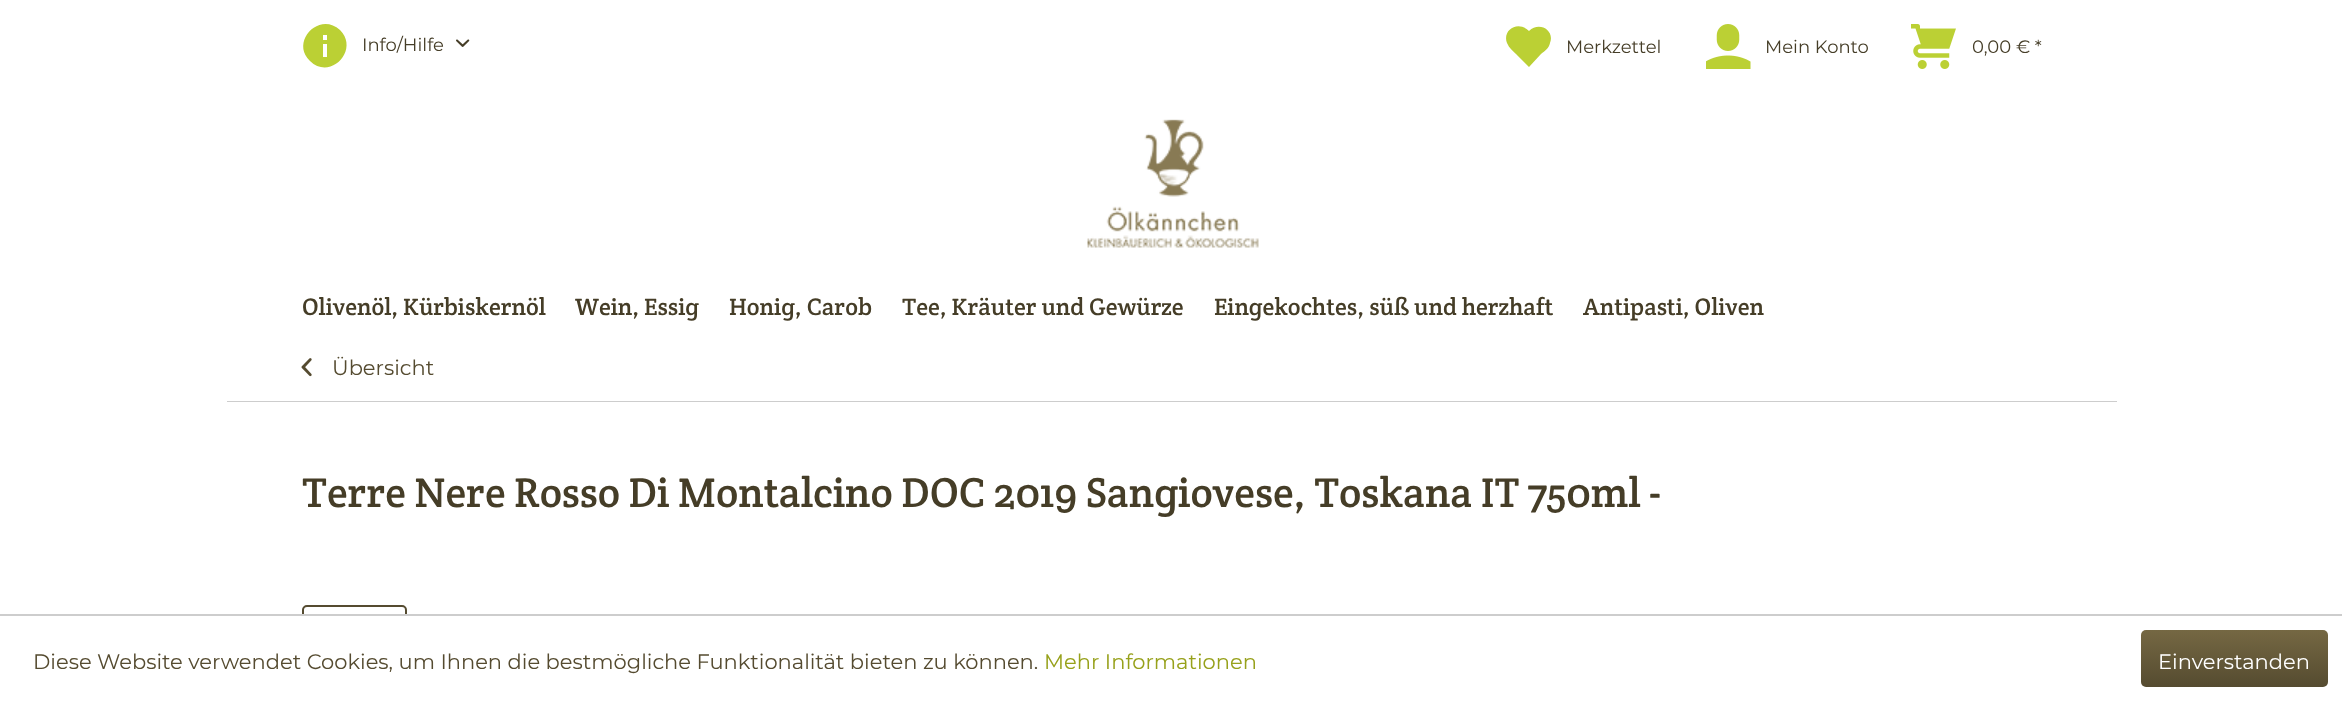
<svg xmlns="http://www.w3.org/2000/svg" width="2342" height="707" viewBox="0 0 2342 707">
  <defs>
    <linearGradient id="g1" gradientUnits="userSpaceOnUse" x1="2234" y1="630" x2="2234" y2="687"><stop offset="0" stop-color="#756843"/><stop offset="1" stop-color="#554b30"/></linearGradient>
  </defs>
  <rect width="100%" height="100%" fill="#fff"/>
  <path d="M310 61C290 42 319 11 340 30C360 50 330 81 310 61ZM323 48V57H327V44H323ZM323 35V40H327V35Z" fill="#bbd034"/>
  <image x="456" y="39" width="14" height="8" href="img/1.png"/>
  <path d="M1529 31C1518 20 1502 30 1507 43C1509 48 1513 51 1516 54L1529 67L1541 54C1545 51 1549 48 1550 43C1555 30 1539 21 1529 31Z" fill="#bbd034"/>
  <image x="1706" y="24" width="45" height="45" href="img/2.png"/>
  <image x="1911" y="24" width="45" height="45" href="img/3.png"/>
  <image x="1087" y="119" width="172" height="129" href="img/4.png"/>
  <path d="M227 401h1890v1H227z" fill="#cdcdcd"/>
  <image x="301" y="358" width="11" height="19" href="img/5.png"/>
  <rect x="303" y="606" width="103" height="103" rx="4" fill="none" stroke="#554b30" stroke-width="2"/>
  <path d="M302 616h105v91H302z" fill="#fff"/>
  <path d="M0 614h2342v2H0z" fill="#cdcdcd"/>
  <rect x="2141" y="630" width="187" height="57" rx="5" fill="url(#g1)"/>
  <g font-family="Montserrat" font-size="18" fill="#453d27">
    <text x="362" y="51">Info/Hilfe</text>
    <text x="1566" y="53">Merkzettel</text>
    <text x="1765" y="53">Mein Konto</text>
    <text x="1972" y="53">0,00 € *</text>
  </g>
  <g font-family="Crete Round" font-size="24" fill="#453d27">
    <text x="302" y="315">Olivenöl, Kürbiskernöl</text>
    <text x="575" y="315">Wein, Essig</text>
    <text x="729" y="315">Honig, Carob</text>
    <text x="902" y="315">Tee, Kräuter und Gewürze</text>
    <text x="1214" y="315">Eingekochtes, süß und herzhaft</text>
    <text x="1583" y="315">Antipasti, Oliven</text>
  </g>
  <text x="332" y="375" font-family="Montserrat" font-size="21" fill="#554b30">Übersicht</text>
  <text x="302" y="507" font-family="Crete Round" font-size="42" fill="#453d27">Terre Nere Rosso Di Montalcino DOC 2019 Sangiovese, Toskana IT 750ml -</text>
  <text x="33" y="669" font-family="Montserrat" font-size="21" fill="#554b30">Diese Website verwendet Cookies, um Ihnen die bestmögliche Funktionalität bieten zu können.</text>
  <text x="1044" y="669" font-family="Montserrat" font-size="21" fill="#97a11b">Mehr Informationen</text>
  <text x="2158" y="669" font-family="Montserrat" font-size="21" fill="#fff">Einverstanden</text>
</svg>
